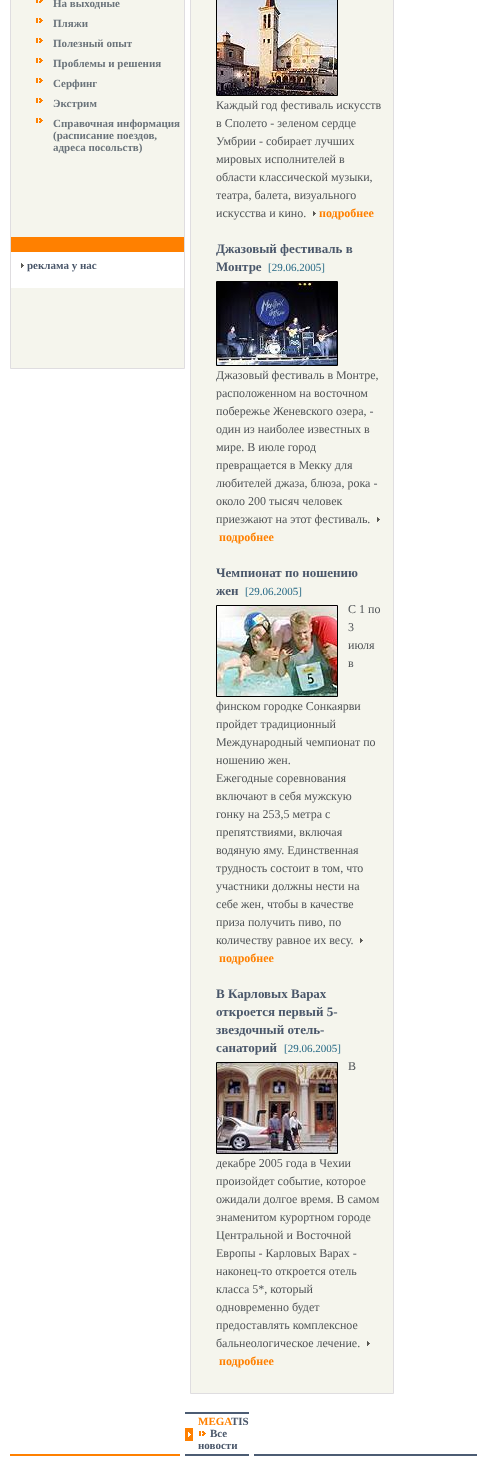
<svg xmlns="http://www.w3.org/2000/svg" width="487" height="1459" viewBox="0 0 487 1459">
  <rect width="100%" height="100%" fill="#fff"/>
  <path d="M10.5 -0.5h174v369H10.5z" fill="#f5f5ed" stroke="#dfdde0"/>
  <image x="36" y="0" width="7" height="3" href="img/1.png"/>
  <image x="36" y="18" width="7" height="5" href="img/2.png"/>
  <image x="36" y="38" width="7" height="5" href="img/2.png"/>
  <image x="36" y="58" width="7" height="5" href="img/2.png"/>
  <image x="36" y="78" width="7" height="5" href="img/2.png"/>
  <image x="36" y="98" width="7" height="5" href="img/2.png"/>
  <image x="36" y="118" width="7" height="5" href="img/2.png"/>
  <path d="M11 252h173v36H11z" fill="#fff"/>
  <path d="M11 237h173v15H11z" fill="#ff8000"/>
  <image x="21" y="263" width="3" height="5" href="img/3.png"/>
  <path d="M190.5 -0.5h203v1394H190.5z" fill="#f5f5ed" stroke="#dfdde0"/>
  <path d="M216.5 -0.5h121v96H216.5z" fill="none" stroke="#000"/>
  <image x="217" y="0" width="120" height="95" href="img/4.png"/>
  <image x="313" y="211" width="3" height="5" href="img/5.png"/>
  <path d="M216.5 281.5h121v84H216.5z" fill="none" stroke="#000"/>
  <image x="217" y="282" width="120" height="83" href="img/6.png"/>
  <image x="377" y="517" width="3" height="5" href="img/5.png"/>
  <path d="M216.5 605.5h121v91H216.5z" fill="none" stroke="#000"/>
  <image x="217" y="606" width="120" height="90" href="img/7.png"/>
  <image x="360" y="938" width="3" height="5" href="img/5.png"/>
  <path d="M216.5 1062.5h121v91H216.5z" fill="none" stroke="#000"/>
  <image x="217" y="1063" width="120" height="90" href="img/8.png"/>
  <image x="367" y="1341" width="3" height="5" href="img/5.png"/>
  <path d="M185 1412h64v2H185z" fill="#4c5c73"/>
  <image x="185" y="1428" width="8" height="13" href="img/9.png"/>
  <image x="199" y="1431" width="7" height="5" href="img/10.png"/>
  <path d="M185 1454h64v2H185z" fill="#4c5c73"/>
  <path d="M10 1454h170v2H10z" fill="#ff8000"/>
  <path d="M254 1454h223v2H254z" fill="#4c5c73"/>
  <g font-family="Liberation Serif" font-size="11" font-weight="bold" fill="#6b747b">
    <text x="53" y="7">На выходные</text>
    <text x="53" y="27">Пляжи</text>
    <text x="53" y="47">Полезный опыт</text>
    <text x="53" y="67">Проблемы и решения</text>
    <text x="53" y="87">Серфинг</text>
    <text x="53" y="107">Экстрим</text>
    <text x="53" y="127">Справочная информация</text>
    <text x="53" y="139">(расписание поездов,</text>
    <text x="53" y="151">адреса посольств)</text>
  </g>
  <text x="27" y="269" font-family="Liberation Serif" font-size="11" font-weight="bold" fill="#4a576a">реклама у нас</text>
  <g font-family="Liberation Serif" font-size="12" fill="#515558">
    <text x="216" y="109">Каждый год фестиваль искусств</text>
    <text x="216" y="127">в Сполето - зеленом сердце</text>
    <text x="216" y="145">Умбрии - собирает лучших</text>
    <text x="216" y="163">мировых исполнителей в</text>
    <text x="216" y="181">области классической музыки,</text>
    <text x="216" y="199">театра, балета, визуального</text>
    <text x="216" y="217">искусства и кино.</text>
  </g>
  <text x="319" y="217" font-family="Liberation Serif" font-size="12" font-weight="bold" fill="#ff8000">подробнее</text>
  <g font-family="Liberation Serif" font-size="13" font-weight="bold" fill="#4a576a">
    <text x="216" y="253">Джазовый фестиваль в</text>
    <text x="216" y="271">Монтре</text>
  </g>
  <text x="268" y="271" font-family="Liberation Serif" font-size="11" fill="#256885">[29.06.2005]</text>
  <g font-family="Liberation Serif" font-size="12" fill="#515558">
    <text x="216" y="379">Джазовый фестиваль в Монтре,</text>
    <text x="216" y="397">расположенном на восточном</text>
    <text x="216" y="415">побережье Женевского озера, -</text>
    <text x="216" y="433">один из наиболее известных в</text>
    <text x="216" y="451">мире. В июле город</text>
    <text x="216" y="469">превращается в Мекку для</text>
    <text x="216" y="487">любителей джаза, блюза, рока -</text>
    <text x="216" y="505">около 200 тысяч человек</text>
    <text x="216" y="523">приезжают на этот фестиваль.</text>
  </g>
  <text x="219" y="541" font-family="Liberation Serif" font-size="12" font-weight="bold" fill="#ff8000">подробнее</text>
  <g font-family="Liberation Serif" font-size="13" font-weight="bold" fill="#4a576a">
    <text x="216" y="577">Чемпионат по ношению</text>
    <text x="216" y="595">жен</text>
  </g>
  <text x="245" y="595" font-family="Liberation Serif" font-size="11" fill="#256885">[29.06.2005]</text>
  <g font-family="Liberation Serif" font-size="12" fill="#515558">
    <text x="348" y="613">С 1 по</text>
    <text x="348" y="631">3</text>
    <text x="348" y="649">июля</text>
    <text x="348" y="667">в</text>
    <text x="216" y="710">финском городке Сонкаярви</text>
    <text x="216" y="728">пройдет традиционный</text>
    <text x="216" y="746">Международный чемпионат по</text>
    <text x="216" y="764">ношению жен.</text>
    <text x="216" y="782">Ежегодные соревнования</text>
    <text x="216" y="800">включают в себя мужскую</text>
    <text x="216" y="818">гонку на 253,5 метра с</text>
    <text x="216" y="836">препятствиями, включая</text>
    <text x="216" y="854">водяную яму. Единственная</text>
    <text x="216" y="872">трудность состоит в том, что</text>
    <text x="216" y="890">участники должны нести на</text>
    <text x="216" y="908">себе жен, чтобы в качестве</text>
    <text x="216" y="926">приза получить пиво, по</text>
    <text x="216" y="944">количеству равное их весу.</text>
  </g>
  <text x="219" y="962" font-family="Liberation Serif" font-size="12" font-weight="bold" fill="#ff8000">подробнее</text>
  <g font-family="Liberation Serif" font-size="13" font-weight="bold" fill="#4a576a">
    <text x="216" y="998">В Карловых Варах</text>
    <text x="216" y="1016">откроется первый 5-</text>
    <text x="216" y="1034">звездочный отель-</text>
    <text x="216" y="1052">санаторий</text>
  </g>
  <text x="284" y="1052" font-family="Liberation Serif" font-size="11" fill="#256885">[29.06.2005]</text>
  <g font-family="Liberation Serif" font-size="12" fill="#515558">
    <text x="348" y="1070">В</text>
    <text x="216" y="1167">декабре 2005 года в Чехии</text>
    <text x="216" y="1185">произойдет событие, которое</text>
    <text x="216" y="1203">ожидали долгое время. В самом</text>
    <text x="216" y="1221">знаменитом курортном городе</text>
    <text x="216" y="1239">Центральной и Восточной</text>
    <text x="216" y="1257">Европы - Карловых Варах -</text>
    <text x="216" y="1275">наконец-то откроется отель</text>
    <text x="216" y="1293">класса 5*, который</text>
    <text x="216" y="1311">одновременно будет</text>
    <text x="216" y="1329">предоставлять комплексное</text>
    <text x="216" y="1347">бальнеологическое лечение.</text>
  </g>
  <text x="219" y="1365" font-family="Liberation Serif" font-size="12" font-weight="bold" fill="#ff8000">подробнее</text>
  <text x="198" y="1425" font-family="Liberation Serif" font-size="11" font-weight="bold" fill="#ff8000">MEGA</text>
  <g font-family="Liberation Serif" font-size="11" font-weight="bold" fill="#4a576a">
    <text x="231" y="1425">TIS</text>
    <text x="210" y="1437">Все</text>
    <text x="198" y="1449">новости</text>
  </g>
</svg>
